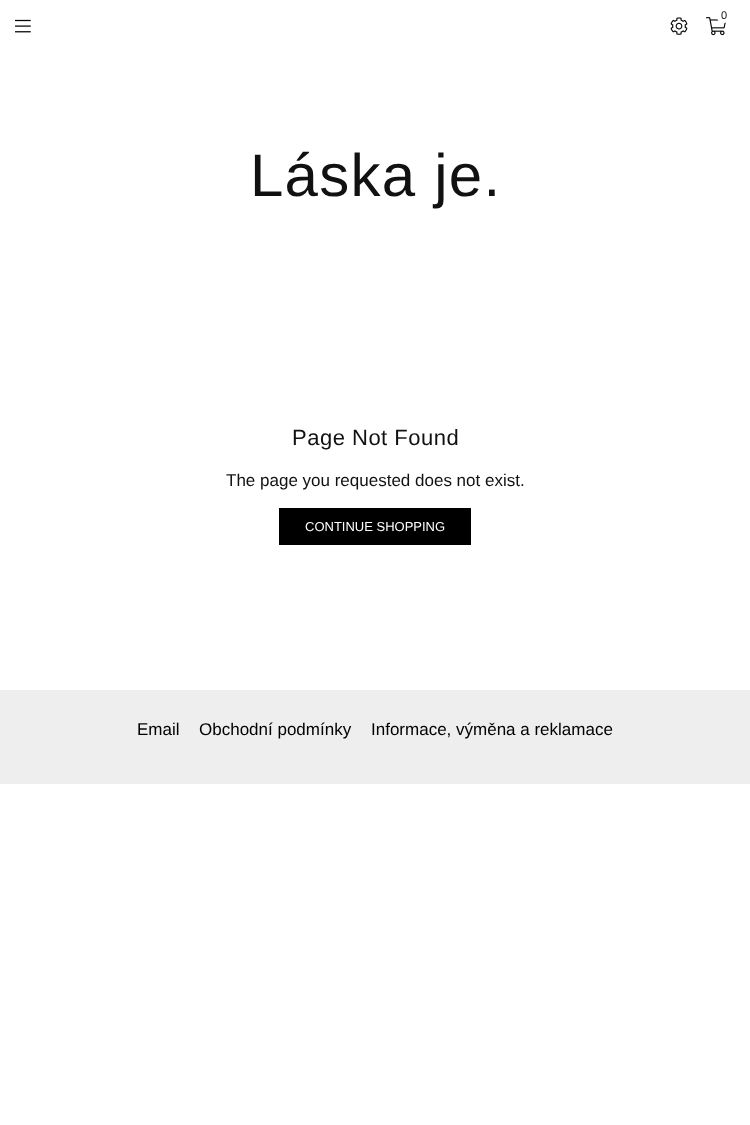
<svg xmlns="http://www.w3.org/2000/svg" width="750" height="1125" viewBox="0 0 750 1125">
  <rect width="100%" height="100%" fill="#fff"/>
  <image x="706" y="17" width="20" height="19" href="img/1.png"/>
  <circle cx="724" cy="15" r="8" fill="#fff"/>
  <image x="670" y="17" width="18" height="18" href="img/2.png"/>
  <image x="15" y="19" width="16" height="14" href="img/3.png"/>
  <path d="M279 508h192v37H279z" fill="#000"/>
  <path d="M0 690h750v94H0z" fill="#eee"/>
  <text x="721" y="19" font-family="Liberation Sans" font-size="11" fill="#111">0</text>
  <text x="250" y="196" font-family="Liberation Sans" font-size="60" letter-spacing="1.25" fill="#111">Láska je.</text>
  <text x="292" y="445" font-family="Liberation Sans" font-size="22" letter-spacing="0.5" fill="#111">Page Not Found</text>
  <text x="226" y="486" font-family="Liberation Sans" font-size="17" fill="#111">The page you requested does not exist.</text>
  <text x="305" y="531" font-family="Liberation Sans" font-size="13" fill="#fff">CONTINUE SHOPPING</text>
  <g font-family="Liberation Sans" font-size="17" fill="#000">
    <text x="137" y="735">Email</text>
    <text x="199" y="735">Obchodní podmínky</text>
    <text x="371" y="735">Informace, výměna a reklamace</text>
  </g>
</svg>
